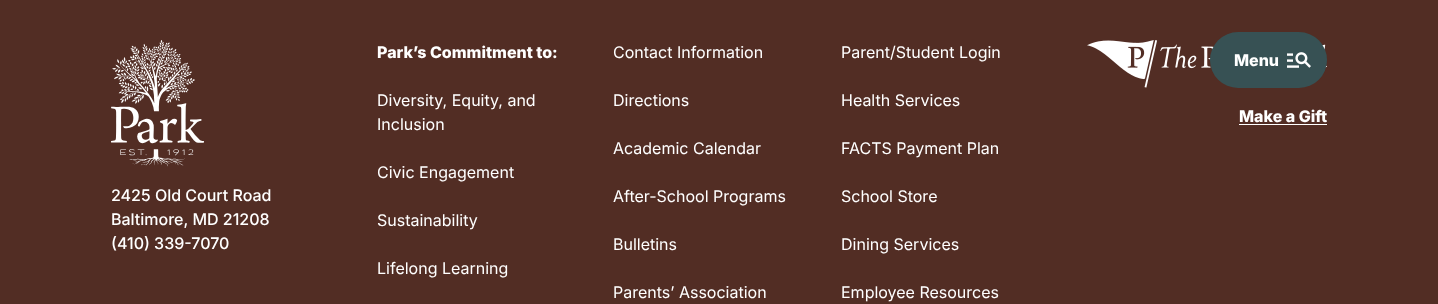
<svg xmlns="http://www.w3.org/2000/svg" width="1438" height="304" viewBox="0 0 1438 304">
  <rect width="100%" height="100%" fill="#522d24"/>
  <image x="1087" y="40" width="240" height="48" href="img/1.png"/>
  <path d="M1239 124h88v1H1239z" fill="#fff"/>
  <image x="111" y="40" width="93" height="127" href="img/2.png"/>
  <rect x="1210" y="32" width="117" height="56" rx="28" fill="#375154"/>
  <image x="1287" y="52" width="24" height="16" href="img/3.png"/>
  <text x="377" y="58" font-family="Inter" font-size="16" font-weight="800" fill="#fff">Park’s Commitment to:</text>
  <g font-family="Inter" font-size="16" fill="#fff">
    <text x="377" y="106">Diversity, Equity, and</text>
    <text x="377" y="130">Inclusion</text>
    <text x="377" y="178">Civic Engagement</text>
    <text x="377" y="226">Sustainability</text>
    <text x="377" y="274">Lifelong Learning</text>
    <text x="613" y="58">Contact Information</text>
    <text x="613" y="106">Directions</text>
    <text x="613" y="154">Academic Calendar</text>
    <text x="613" y="202">After-School Programs</text>
    <text x="613" y="250">Bulletins</text>
    <text x="613" y="298">Parents’ Association</text>
    <text x="841" y="58">Parent/Student Login</text>
    <text x="841" y="106">Health Services</text>
    <text x="841" y="154">FACTS Payment Plan</text>
    <text x="841" y="202">School Store</text>
    <text x="841" y="250">Dining Services</text>
    <text x="841" y="298">Employee Resources</text>
  </g>
  <text x="1239" y="122" font-family="Inter" font-size="16" font-weight="800" fill="#fff">Make a Gift</text>
  <g font-family="Inter" font-size="16" font-weight="500" fill="#fff">
    <text x="111" y="201">2425 Old Court Road</text>
    <text x="111" y="225">Baltimore, MD 21208</text>
    <text x="111" y="249">(410) 339-7070</text>
  </g>
  <text x="1234" y="66" font-family="Inter" font-size="16" font-weight="800" fill="#fff">Menu</text>
</svg>
